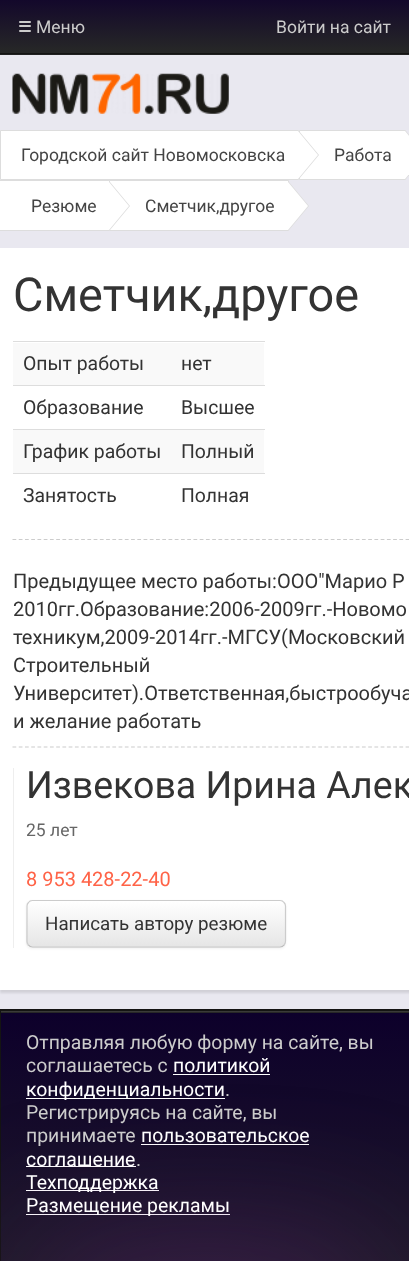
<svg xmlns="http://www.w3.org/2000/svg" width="409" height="1261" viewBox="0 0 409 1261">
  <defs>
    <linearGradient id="g1" gradientUnits="userSpaceOnUse" x1="205" y1="53" x2="205" y2="0"><stop offset="0" stop-color="#272827"/><stop offset="1" stop-color="#13082b"/></linearGradient>
    <clipPath id="clip1"><rect x="26" y="900" width="260" height="48" rx="6"/></clipPath>
    <linearGradient id="g2" gradientUnits="userSpaceOnUse" x1="156" y1="901" x2="156" y2="946"><stop offset="0" stop-color="#fff"/><stop offset="1" stop-color="#e6e6e6"/></linearGradient>
    <linearGradient id="g3" gradientUnits="userSpaceOnUse" x1="205" y1="1013" x2="205" y2="629"><stop offset="0" stop-color="#272727"/><stop offset="1" stop-color="#0d002b"/></linearGradient>
    <linearGradient id="g4" gradientUnits="userSpaceOnUse" x1="205" y1="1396" x2="205" y2="1013"><stop offset="0" stop-color="#272727"/><stop offset="1" stop-color="#0d002b"/></linearGradient>
  </defs>
  <rect width="100%" height="100%" fill="#e9e8f0"/>
  <path d="M0 54h409v1H0z" fill="#212121"/>
  <path d="M0 0h409v53H0z" fill="url(#g1)"/>
  <path d="M0 53h409v1H0z" fill="#141413"/>
  <rect x="19" y="21" width="12" height="2" rx="1" fill="#ccc"/>
  <rect x="19" y="25" width="12" height="2" rx="1" fill="#ccc"/>
  <rect x="19" y="30" width="12" height="2" rx="1" fill="#ccc"/>
  <image x="12" y="73" width="217" height="41" href="img/1.png"/>
  <path d="M299.5 130.5h106v49H299.5z" fill="#fff" stroke="#ddd"/>
  <path d="M406 179V131L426 155Z" fill="#ddd"/>
  <path d="M405 179V131L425 155Z" fill="#fff"/>
  <path d="M-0.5 180.5h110v50H-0.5z" fill="#fff" stroke="#ddd"/>
  <path d="M109.5 180.5h179v50H109.5z" fill="#fff" stroke="#ddd"/>
  <path d="M110 230V182L130 206Z" fill="#ddd"/>
  <path d="M109 230V182L129 206Z" fill="#fff"/>
  <path d="M289 230V182L309 206Z" fill="#ddd"/>
  <path d="M288 230V182L308 206Z" fill="#fff"/>
  <path d="M0.5 130.5h298v49H0.5z" fill="#fff" stroke="#ddd"/>
  <path d="M299 179V131L319 155Z" fill="#ddd"/>
  <path d="M298 179V131L318 155Z" fill="#fff"/>
  <path d="M0 250h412v743H0z" fill="#0000001a" filter="blur(1px)"/>
  <path d="M0 248h409v742H0z" fill="#fff"/>
  <path d="M13 343h251v42H13z" fill="#f9f9f9"/>
  <path d="M13 341h252v1H13z" fill="#ddd"/>
  <path d="M13 385h252v1H13z" fill="#ddd"/>
  <path d="M13 430h251v43H13z" fill="#f9f9f9"/>
  <path d="M13 429h252v1H13z" fill="#ddd"/>
  <path d="M13 473h252v1H13z" fill="#ddd"/>
  <path d="M12.5 539.5H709" fill="none" stroke="#ccc" stroke-width="1.2" stroke-dasharray="3.75 2.49"/>
  <path d="M12.5 747H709" fill="none" stroke="#ccc" stroke-width="1.2" stroke-dasharray="3.75 2.49"/>
  <path d="M13 768h1v180H13z" fill="#eee"/>
  <rect x="26" y="901" width="260" height="48" rx="6" fill="#0000000d" filter="blur(1px)"/>
  <rect x="26" y="900" width="260" height="48" rx="6" fill="#f5f5f5"/>
  <g clip-path="url(#clip1)">
    <path d="M26 901h260v45H26z" fill="url(#g2)"/>
  </g>
  <path d="M284 945C283 946.5 281.5 947 280 947H32.5C31 947 29.5 946.5 28.5 945" fill="none" stroke="#bbb" stroke-width="1.2"/>
  <path d="M28.5 945C27.5 944 27 942.5 27 941V906C27 905 27.5 903.5 28.5 902.5C29.5 901 31 900.5 32.5 900.5H280C281.5 900.5 283 901 284 902.5C285 903.5 285.5 905 285.5 906V941C285.5 942.5 285 944 284 945" fill="none" stroke="#ccc" stroke-width="1.2"/>
  <path d="M0 1009h409v2H0z" fill="#141413"/>
  <path d="M0 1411V1009L1 1011V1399Z" fill="#141413"/>
  <path d="M1 1012h408v1H1z" fill="url(#g3)"/>
  <path d="M1 1013h408v248H1z" fill="url(#g4)"/>
  <path d="M1 1011h408v1H1z" fill="#3a3a38"/>
  <path d="M173 1074h97v1H173z" fill="#fff"/>
  <path d="M26 1098h199v1H26z" fill="#fff"/>
  <path d="M141 1144h168v1H141z" fill="#fff"/>
  <path d="M26 1166h110v1H26z" fill="#fff"/>
  <path d="M26 1190h133v1H26z" fill="#fff"/>
  <path d="M26 1214h204v1H26z" fill="#fff"/>
  <rect x="26" y="1251" width="358" height="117" rx="58.5" fill="#75258f66" filter="blur(75px)"/>
  <g font-family="Roboto" font-size="17.5" fill="#ccc">
    <text x="36" y="33">Меню</text>
    <text x="276" y="33">Войти на сайт</text>
  </g>
  <g font-family="Roboto" font-size="17.5" fill="#444">
    <text x="334" y="161">Работа</text>
    <text x="31" y="212">Резюме</text>
    <text x="145" y="212">Сметчик,другое</text>
    <text x="21" y="161">Городской сайт Новомосковска</text>
  </g>
  <text x="13" y="311" font-family="Roboto" font-size="46.75" fill="#333">Сметчик,другое</text>
  <g font-family="Roboto" font-size="19.4" fill="#333">
    <text x="23" y="370">Опыт работы</text>
    <text x="181" y="370">нет</text>
    <text x="23" y="414">Образование</text>
    <text x="181" y="414">Высшее</text>
    <text x="23" y="458">График работы</text>
    <text x="181" y="458">Полный</text>
    <text x="23" y="502">Занятость</text>
    <text x="181" y="502">Полная</text>
  </g>
  <g font-family="Roboto" font-size="20" fill="#333">
    <text x="13" y="588">Предыдущее место работы:ООО"Марио Р</text>
    <text x="13" y="616">2010гг.Образование:2006-2009гг.-Новомо</text>
    <text x="13" y="644">техникум,2009-2014гг.-МГСУ(Московский</text>
    <text x="13" y="672">Строительный</text>
    <text x="13" y="700">Университет).Ответственная,быстрообуча</text>
    <text x="13" y="728">и желание работать</text>
  </g>
  <text x="26" y="798" font-family="Roboto" font-size="37.5" fill="#333">Извекова Ирина Алек</text>
  <text x="26" y="836" font-family="Roboto" font-size="17.5" fill="#666">25 лет</text>
  <text x="26" y="886" font-family="Roboto" font-size="20" fill="#ff6347">8 953 428-22-40</text>
  <text x="45" y="930" font-family="Roboto" font-size="18.75" fill="#333">Написать автору резюме</text>
  <g font-family="Roboto" font-size="19.4" fill="#ccc">
    <text x="26" y="1049">Отправляя любую форму на сайте, вы</text>
    <text x="26" y="1072">соглашаетесь с</text>
  </g>
  <g font-family="Roboto" font-size="19.4" fill="#fff">
    <text x="173" y="1072">политикой</text>
    <text x="26" y="1096">конфиденциальности</text>
  </g>
  <g font-family="Roboto" font-size="19.4" fill="#ccc">
    <text x="225" y="1096">.</text>
    <text x="26" y="1119">Регистрируясь на сайте, вы</text>
    <text x="26" y="1142">принимаете</text>
  </g>
  <g font-family="Roboto" font-size="19.4" fill="#fff">
    <text x="141" y="1142">пользовательское</text>
    <text x="26" y="1166">соглашение</text>
  </g>
  <text x="136" y="1166" font-family="Roboto" font-size="19.4" fill="#ccc">.</text>
  <g font-family="Roboto" font-size="19.4" fill="#fff">
    <text x="26" y="1189">Техподдержка</text>
    <text x="26" y="1212">Размещение рекламы</text>
  </g>
</svg>
